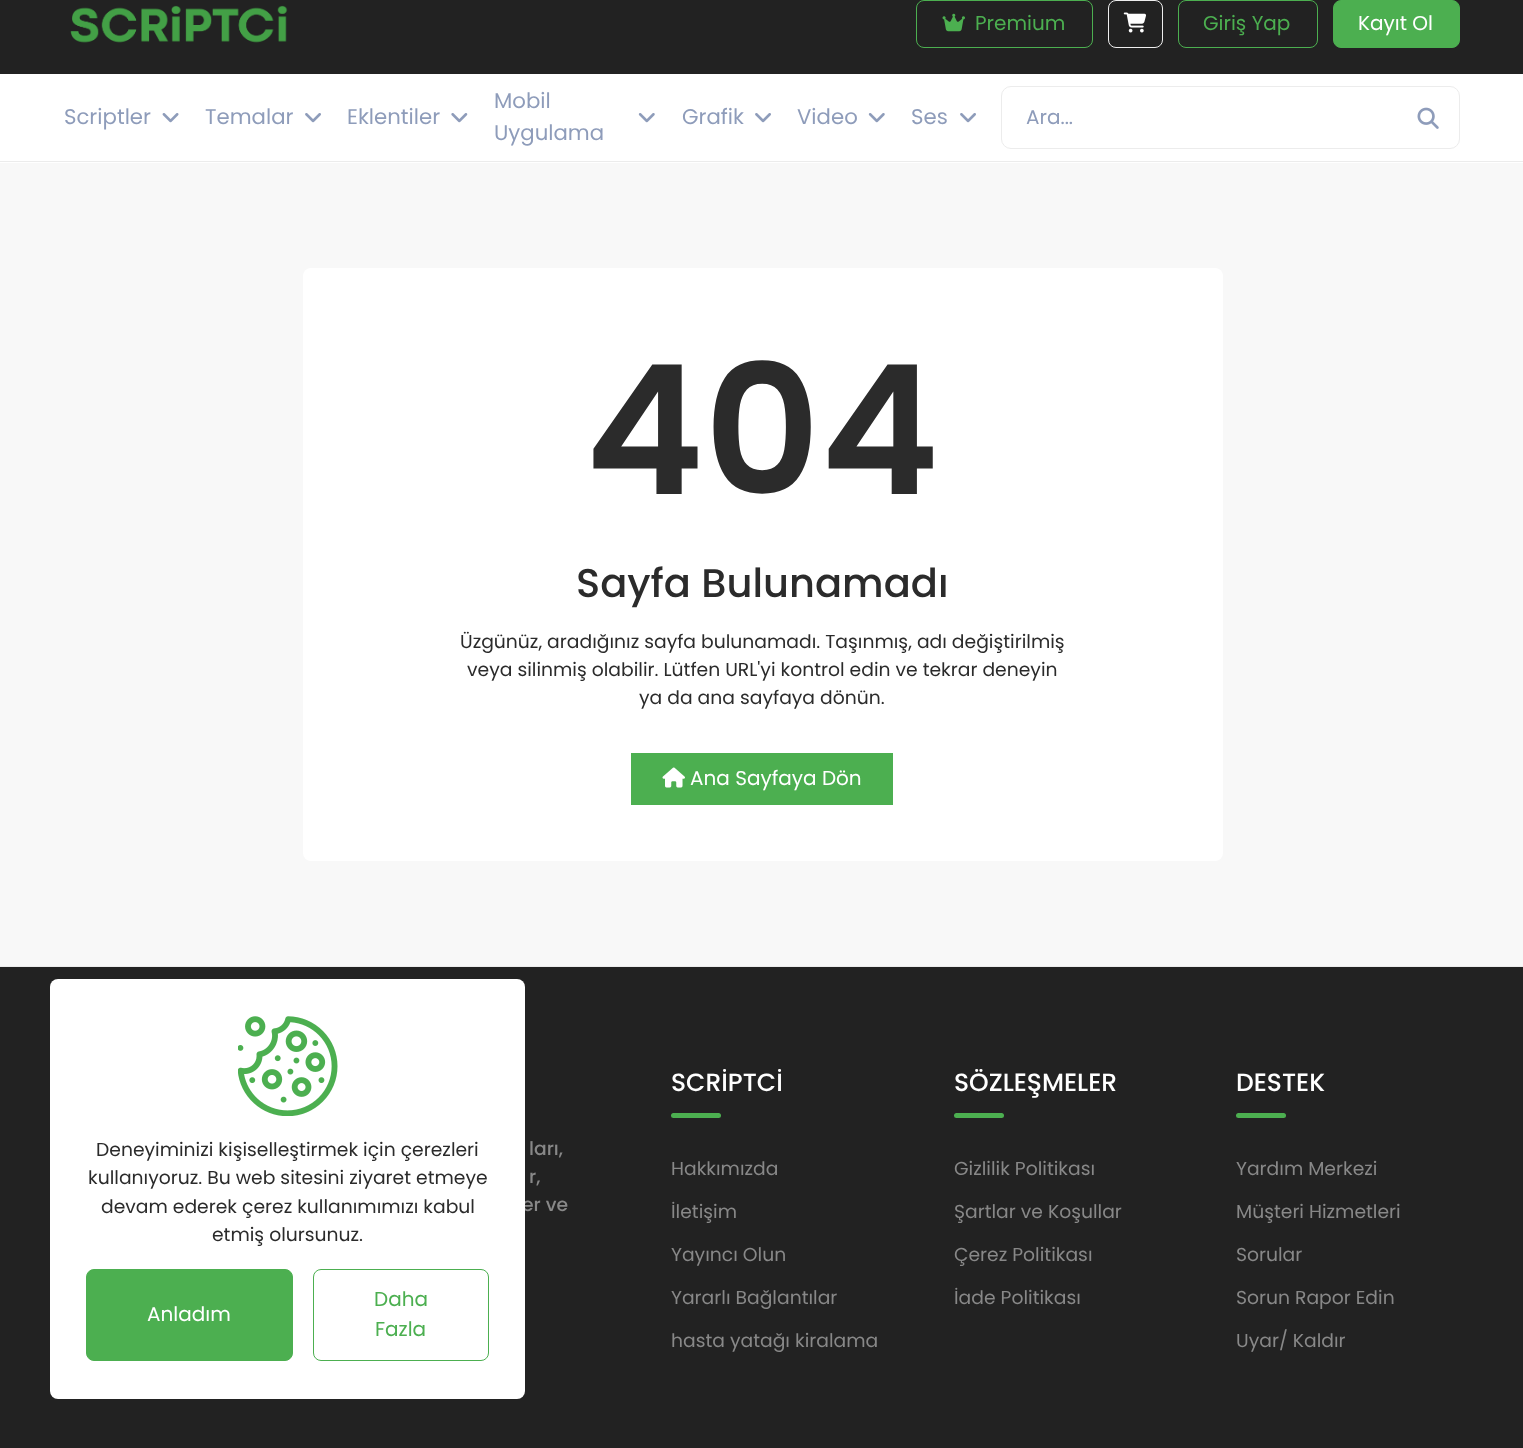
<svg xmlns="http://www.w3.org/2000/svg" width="1523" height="1448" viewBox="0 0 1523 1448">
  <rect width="100%" height="100%" fill="#f8f8f8"/>
  <path d="M0 0h1523v74H0z" fill="#222"/>
  <image x="70" y="5" width="218" height="38" href="img/1.png"/>
  <rect x="916.5" y="0.5" width="176" height="47" rx="7.5" fill="none" stroke="#4caf50"/>
  <image x="942" y="13" width="23" height="19" href="img/2.png"/>
  <rect x="1108.5" y="0.5" width="54" height="47" rx="7.5" fill="none" stroke="#eee"/>
  <image x="1123" y="12" width="23" height="21" href="img/3.png"/>
  <rect x="1178.5" y="0.5" width="139" height="47" rx="7.5" fill="none" stroke="#4caf50"/>
  <rect x="1333.5" y="0.5" width="126" height="47" rx="7.5" fill="#4caf50" stroke="#4caf50"/>
  <path d="M0 74h1523v89H0z" fill="#fff"/>
  <path d="M0 161h1523v1H0z" fill="#ececec"/>
  <image x="162" y="113" width="17" height="10" href="img/4.png"/>
  <image x="305" y="113" width="16" height="10" href="img/5.png"/>
  <image x="451" y="113" width="17" height="10" href="img/6.png"/>
  <image x="638" y="113" width="17" height="10" href="img/7.png"/>
  <image x="755" y="113" width="16" height="10" href="img/5.png"/>
  <image x="868" y="113" width="17" height="10" href="img/7.png"/>
  <image x="960" y="113" width="16" height="10" href="img/5.png"/>
  <rect x="1001.5" y="86.5" width="458" height="62" rx="9.5" fill="none" stroke="#ececec"/>
  <image x="1417" y="107" width="22" height="22" href="img/8.png"/>
  <rect x="303" y="268" width="920" height="593" rx="8" fill="#fff"/>
  <path d="M631 753h262v52H631z" fill="#4caf50"/>
  <image x="662" y="767" width="23" height="21" href="img/9.png"/>
  <path d="M0 967h1523v481H0z" fill="#222"/>
  <path d="M0 966h1523v1H0z" fill="#ececec"/>
  <rect x="671" y="1113" width="50" height="5" rx="2.5" fill="#4caf50"/>
  <rect x="954" y="1113" width="50" height="5" rx="2.5" fill="#4caf50"/>
  <rect x="1236" y="1113" width="50" height="5" rx="2.5" fill="#4caf50"/>
  <g font-family="Poppins" font-size="20" fill="#4caf50">
    <text x="975" y="30">Premium</text>
    <text x="1203" y="30">Giriş Yap</text>
  </g>
  <text x="1358" y="30" font-family="Poppins" font-size="20" fill="#fff">Kayıt Ol</text>
  <g font-family="Poppins" font-size="21.25" fill="#8e9cba">
    <text x="64" y="124">Scriptler</text>
    <text x="205" y="124">Temalar</text>
    <text x="347" y="124">Eklentiler</text>
    <text x="494" y="108">Mobil</text>
    <text x="494" y="140">Uygulama</text>
    <text x="682" y="124">Grafik</text>
    <text x="797" y="124">Video</text>
    <text x="911" y="124">Ses</text>
  </g>
  <text x="1026" y="124" font-family="Poppins" font-size="20" fill="#8e9cba">Ara...</text>
  <text x="585" y="494" font-family="Poppins" font-size="180" font-weight="600" fill="#2b2b2b">404</text>
  <text x="576" y="597" font-family="Poppins" font-size="40" font-weight="500" fill="#2b2b2b">Sayfa Bulunamadı</text>
  <g font-family="Poppins" font-size="18.75" fill="#2b2b2b">
    <text x="460" y="648">Üzgünüz, aradığınız sayfa bulunamadı. Taşınmış, adı değiştirilmiş</text>
    <text x="467" y="676">veya silinmiş olabilir. Lütfen URL'yi kontrol edin ve tekrar deneyin</text>
    <text x="639" y="704">ya da ana sayfaya dönün.</text>
  </g>
  <text x="690" y="785" font-family="Poppins" font-size="20" fill="#fff">Ana Sayfaya Dön</text>
  <g font-family="Poppins" font-size="18.75" font-weight="500" fill="#888">
    <text x="529" y="1155">ları,</text>
    <text x="529" y="1183">r,</text>
    <text x="522" y="1211">er ve</text>
  </g>
  <rect x="50" y="979" width="475" height="420" rx="8" fill="#fff"/>
  <image x="238" y="1016" width="100" height="100" href="img/10.png"/>
  <rect x="313.5" y="1269.5" width="175" height="91" rx="7.5" fill="none" stroke="#4caf50"/>
  <g font-family="Poppins" font-size="20" fill="#4caf50">
    <text x="375" y="1336">Fazla</text>
    <text x="374" y="1306">Daha</text>
  </g>
  <rect x="86.5" y="1269.5" width="206" height="91" rx="7.5" fill="#4caf50" stroke="#4caf50"/>
  <text x="147" y="1321" font-family="Poppins" font-size="20" fill="#fff">Anladım</text>
  <g font-family="Poppins" font-size="18.75" fill="#2b2b2b">
    <text x="212" y="1241">etmiş olursunuz.</text>
    <text x="101" y="1213">devam ederek çerez kullanımımızı kabul</text>
    <text x="88" y="1184">kullanıyoruz. Bu web sitesini ziyaret etmeye</text>
    <text x="96" y="1156">Deneyiminizi kişiselleştirmek için çerezleri</text>
  </g>
  <text x="671" y="1091" font-family="Poppins" font-size="25" font-weight="500" fill="#fff">SCRİPTCİ</text>
  <g font-family="Poppins" font-size="18.75" fill="#888">
    <text x="671" y="1175">Hakkımızda</text>
    <text x="671" y="1218">İletişim</text>
    <text x="671" y="1261">Yayıncı Olun</text>
    <text x="671" y="1304">Yararlı Bağlantılar</text>
    <text x="671" y="1347">hasta yatağı kiralama</text>
  </g>
  <text x="954" y="1091" font-family="Poppins" font-size="25" font-weight="500" fill="#fff">SÖZLEŞMELER</text>
  <g font-family="Poppins" font-size="18.75" fill="#888">
    <text x="954" y="1175">Gizlilik Politikası</text>
    <text x="954" y="1218">Şartlar ve Koşullar</text>
    <text x="954" y="1261">Çerez Politikası</text>
    <text x="954" y="1304">İade Politikası</text>
  </g>
  <text x="1236" y="1091" font-family="Poppins" font-size="25" font-weight="500" fill="#fff">DESTEK</text>
  <g font-family="Poppins" font-size="18.75" fill="#888">
    <text x="1236" y="1175">Yardım Merkezi</text>
    <text x="1236" y="1218">Müşteri Hizmetleri</text>
    <text x="1236" y="1261">Sorular</text>
    <text x="1236" y="1304">Sorun Rapor Edin</text>
    <text x="1236" y="1347">Uyar/ Kaldır</text>
  </g>
</svg>
